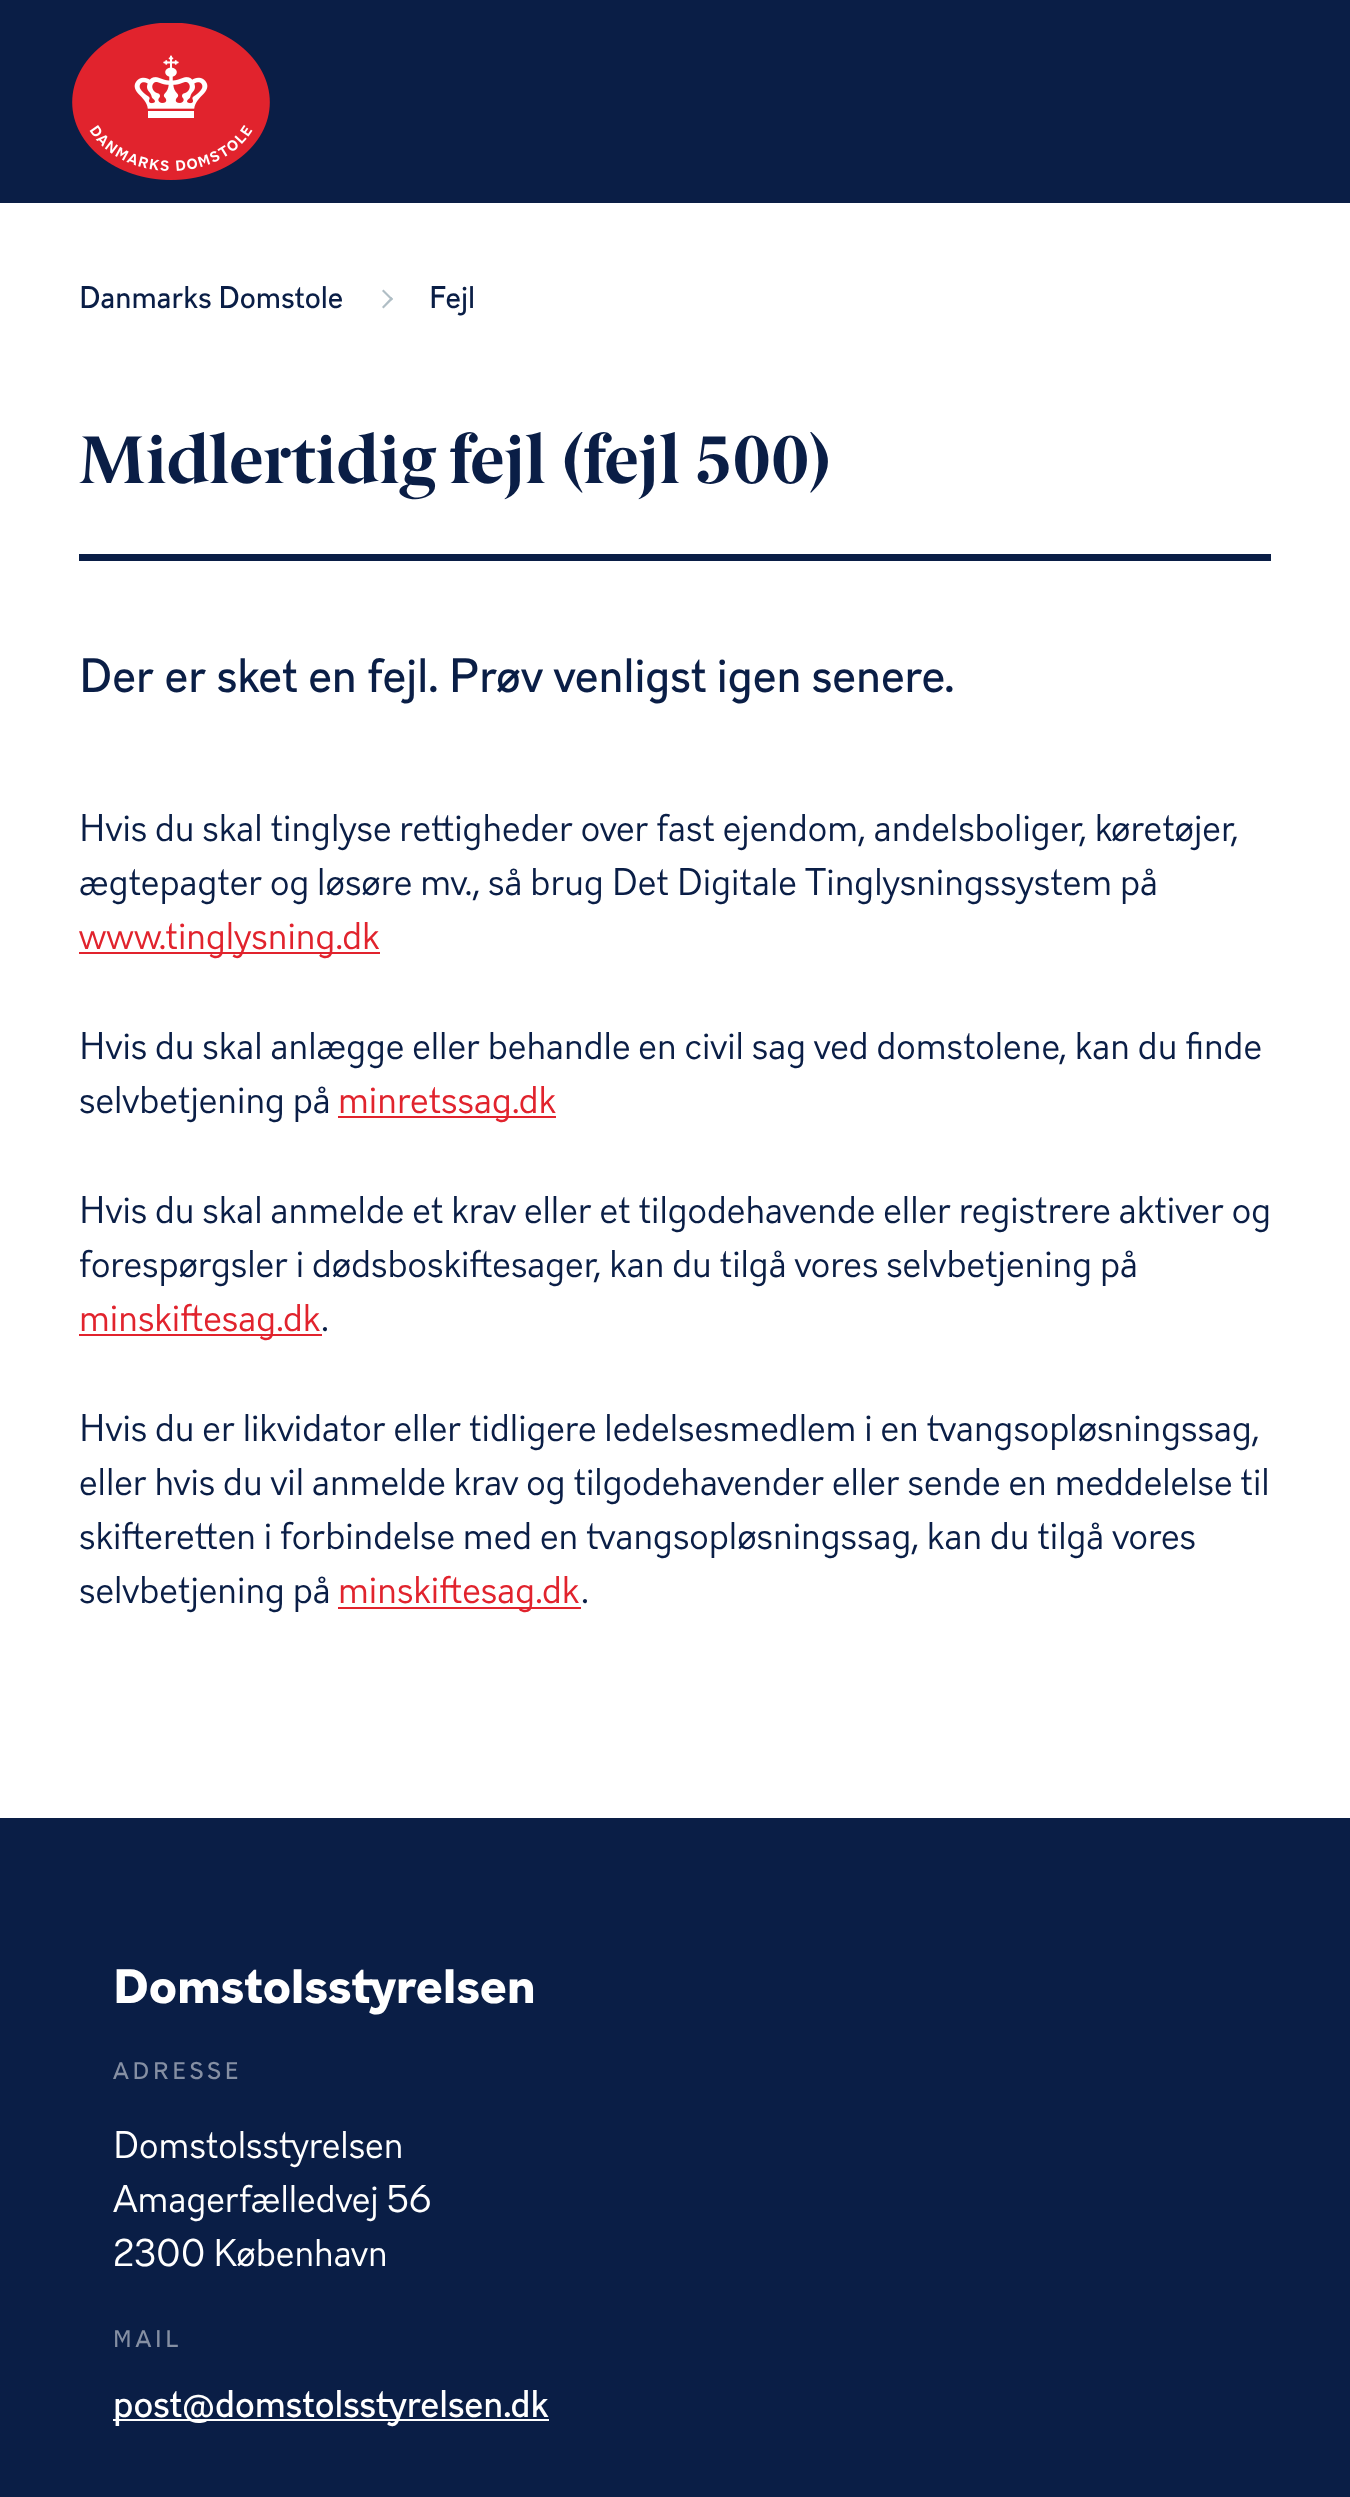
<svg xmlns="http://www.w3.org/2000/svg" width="1350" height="2497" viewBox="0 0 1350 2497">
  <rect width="100%" height="100%" fill="#fff"/>
  <path d="M0 0h1350v203H0z" fill="#0a1e46"/>
  <image x="72" y="23" width="198" height="157" href="img/1.png"/>
  <path d="M382 291L383.5 289.5L393 299L391.5 300.5Z" fill="#b0bec5"/>
  <path d="M382 307L391.5 297L393 299L383.5 308.5Z" fill="#b0bec5"/>
  <path d="M79 554h1192v7H79z" fill="#0a1e46"/>
  <path d="M79 952h301v2H79z" fill="#e1232d"/>
  <path d="M338 1116h218v2H338z" fill="#e1232d"/>
  <path d="M79 1334h243v2H79z" fill="#e1232d"/>
  <path d="M338 1607h243v2H338z" fill="#e1232d"/>
  <path d="M0 1818h1350v679H0z" fill="#0a1e46"/>
  <path d="M113 2419h436v2H113z" fill="#fff"/>
  <g font-family="'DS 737'" font-size="29.25" fill="#0a1e46">
    <text x="79" y="308">Danmarks Domstole</text>
    <text x="429" y="308">Fejl</text>
  </g>
  <text x="79" y="483" font-family="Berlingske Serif" font-size="67.5" font-weight="bold" fill="#0a1e46">Midlertidig fejl (fejl 500)</text>
  <text x="79" y="692" font-family="'DS 737'" font-size="45" fill="#0a1e46">Der er sket en fejl. Prøv venligst igen senere.</text>
  <g font-family="'DS 737'" font-size="36" font-weight="300" fill="#0a1e46">
    <text x="79" y="841">Hvis du skal tinglyse rettigheder over fast ejendom, andelsboliger, køretøjer,</text>
    <text x="79" y="895">ægtepagter og løsøre mv., så brug Det Digitale Tinglysningssystem på</text>
  </g>
  <text x="79" y="949" font-family="'DS 737'" font-size="36" font-weight="300" fill="#e1232d">www.tinglysning.dk</text>
  <g font-family="'DS 737'" font-size="36" font-weight="300" fill="#0a1e46">
    <text x="79" y="1059">Hvis du skal anlægge eller behandle en civil sag ved domstolene, kan du finde</text>
    <text x="79" y="1113">selvbetjening på</text>
  </g>
  <text x="338" y="1113" font-family="'DS 737'" font-size="36" font-weight="300" fill="#e1232d">minretssag.dk</text>
  <g font-family="'DS 737'" font-size="36" font-weight="300" fill="#0a1e46">
    <text x="79" y="1223">Hvis du skal anmelde et krav eller et tilgodehavende eller registrere aktiver og</text>
    <text x="79" y="1277">forespørgsler i dødsboskiftesager, kan du tilgå vores selvbetjening på</text>
  </g>
  <text x="79" y="1331" font-family="'DS 737'" font-size="36" font-weight="300" fill="#e1232d">minskiftesag.dk</text>
  <g font-family="'DS 737'" font-size="36" font-weight="300" fill="#0a1e46">
    <text x="321" y="1331">.</text>
    <text x="79" y="1441">Hvis du er likvidator eller tidligere ledelsesmedlem i en tvangsopløsningssag,</text>
    <text x="79" y="1495">eller hvis du vil anmelde krav og tilgodehavender eller sende en meddelelse til</text>
    <text x="79" y="1549">skifteretten i forbindelse med en tvangsopløsningssag, kan du tilgå vores</text>
    <text x="79" y="1603">selvbetjening på</text>
  </g>
  <text x="338" y="1603" font-family="'DS 737'" font-size="36" font-weight="300" fill="#e1232d">minskiftesag.dk</text>
  <text x="581" y="1603" font-family="'DS 737'" font-size="36" font-weight="300" fill="#0a1e46">.</text>
  <text x="113" y="2003" font-family="'DS 737'" font-size="45" font-weight="bold" fill="#fff">Domstolsstyrelsen</text>
  <text x="113" y="2079" font-family="'DS 737'" font-size="22.5" letter-spacing="3.75" fill="#858fa3">ADRESSE</text>
  <g font-family="'DS 737'" font-size="36" font-weight="300" fill="#fff">
    <text x="113" y="2158">Domstolsstyrelsen</text>
    <text x="113" y="2212">Amagerfælledvej 56</text>
    <text x="113" y="2266">2300 København</text>
  </g>
  <text x="113" y="2347" font-family="'DS 737'" font-size="22.5" letter-spacing="3.75" fill="#858fa3">MAIL</text>
  <text x="113" y="2417" font-family="'DS 737'" font-size="36" fill="#fff">post@domstolsstyrelsen.dk</text>
</svg>
